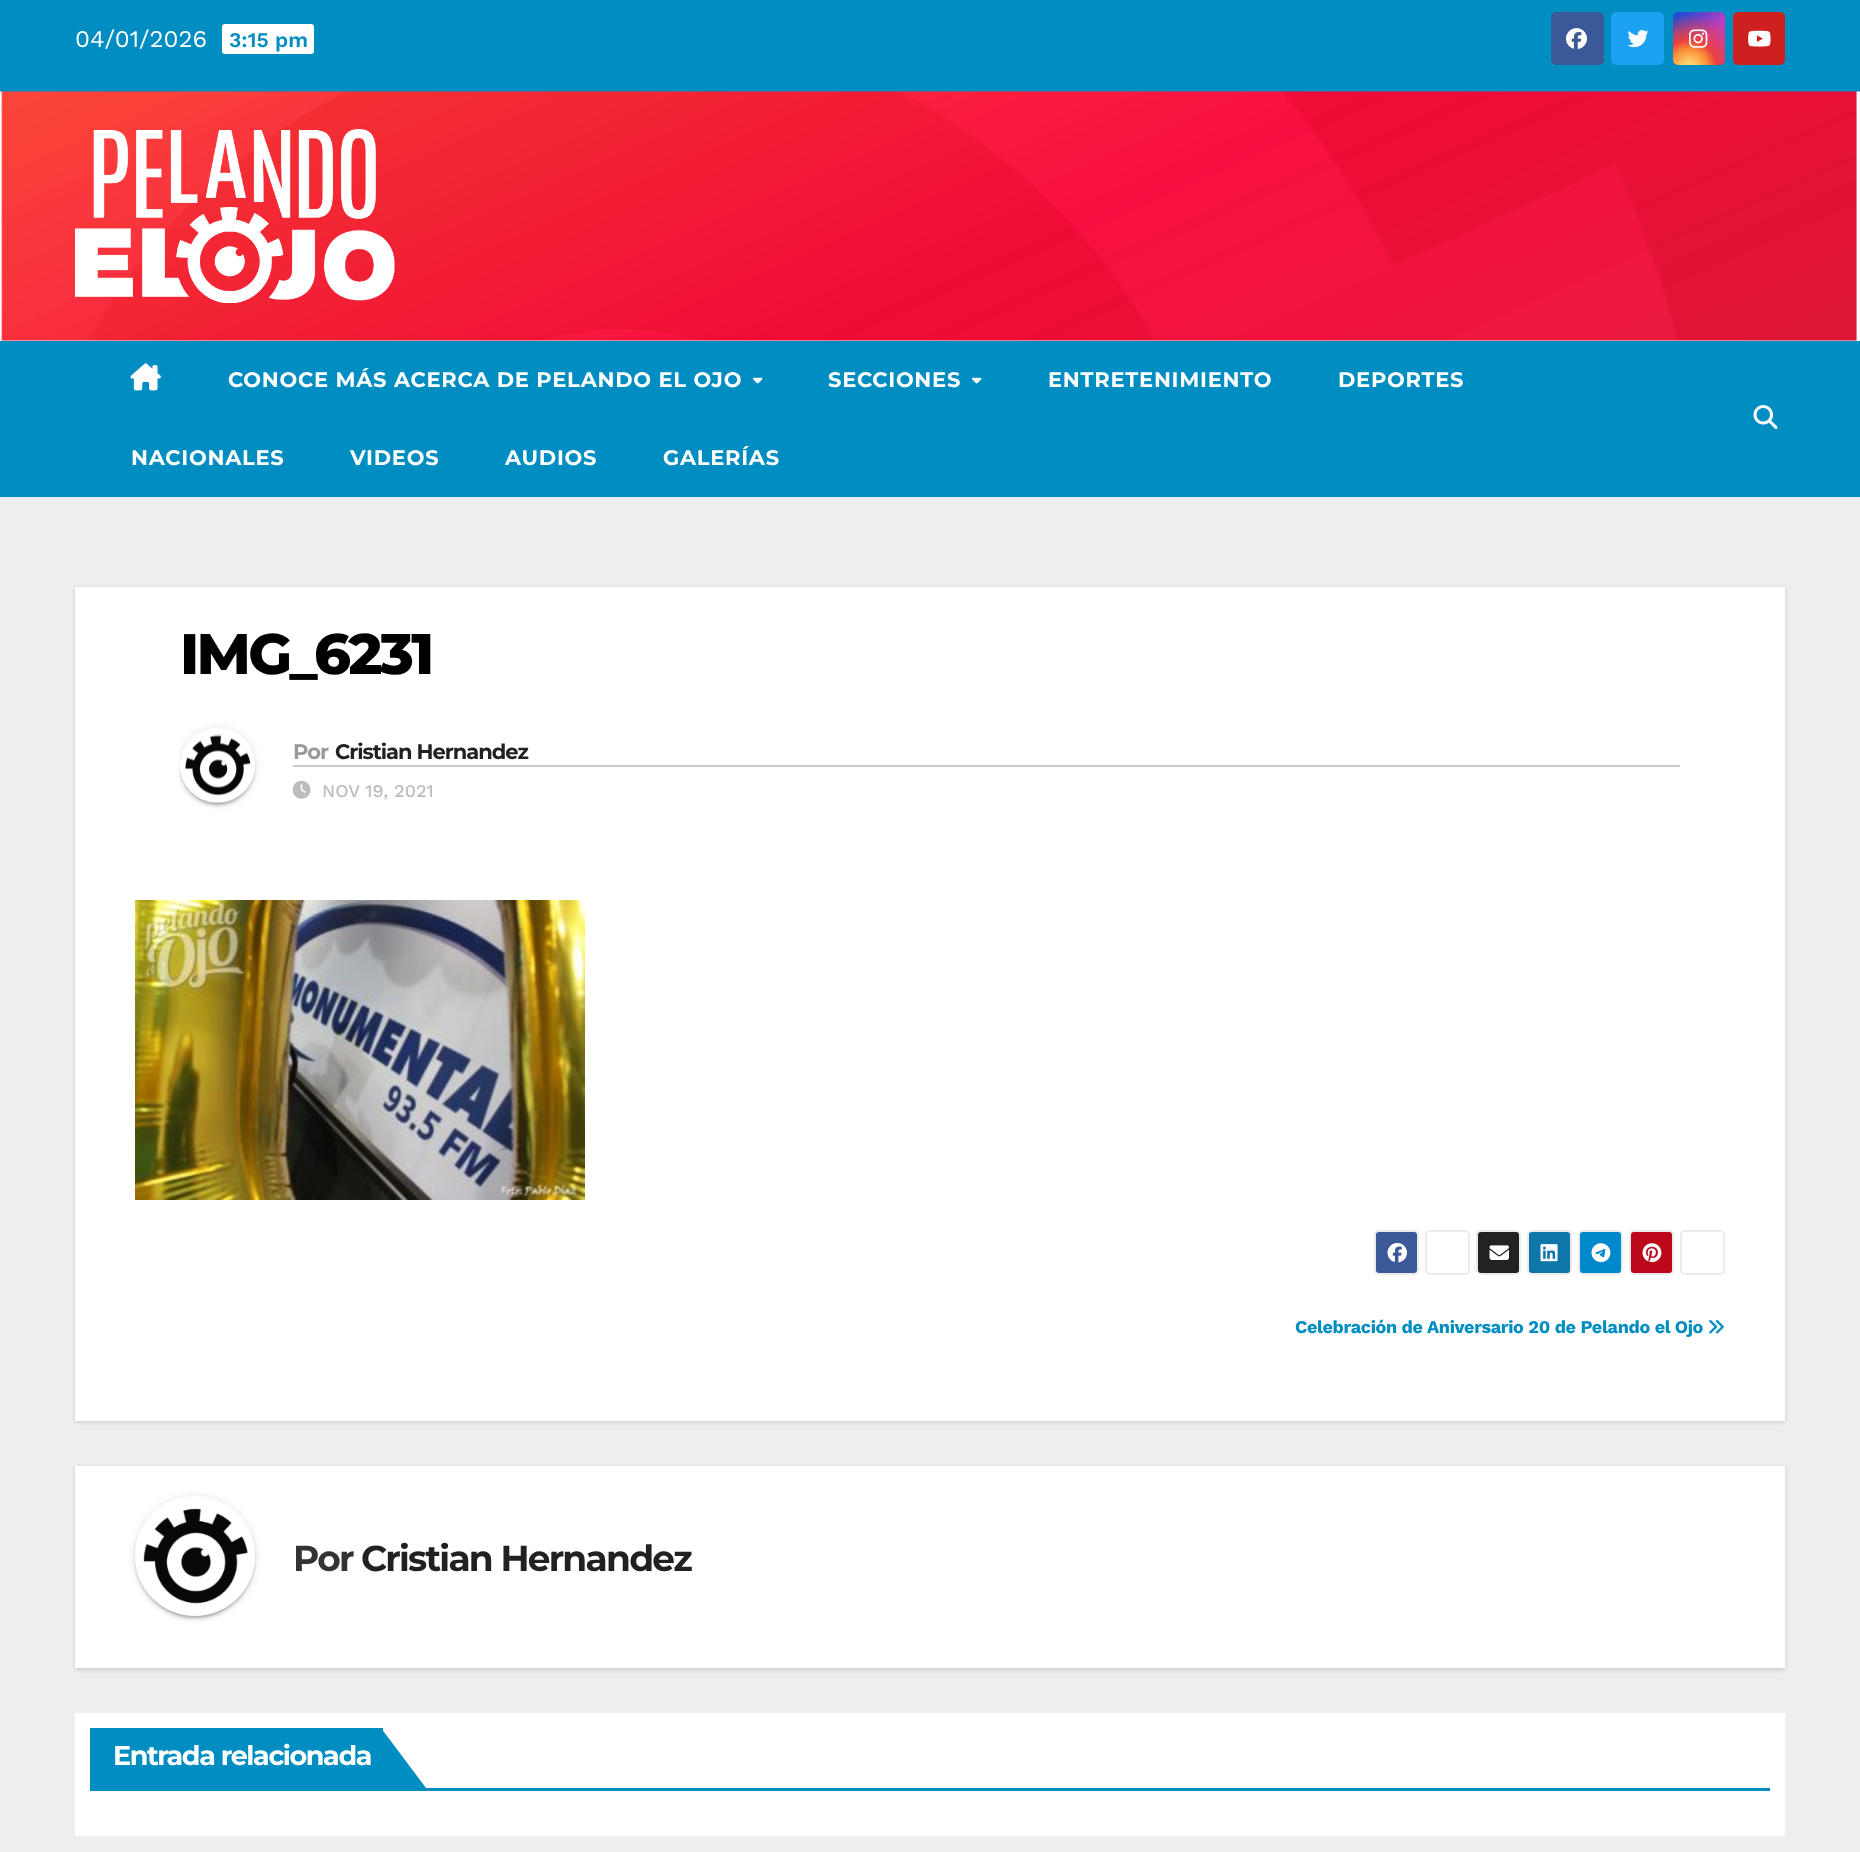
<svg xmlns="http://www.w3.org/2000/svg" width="1860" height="1852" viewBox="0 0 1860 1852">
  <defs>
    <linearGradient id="g1" gradientUnits="userSpaceOnUse" x1="1673" y1="12" x2="1725" y2="65"><stop offset="0.12" stop-color="#234bd7"/><stop offset="0.58" stop-color="#c33cbe"/></linearGradient>
    <radialGradient id="g2" gradientUnits="userSpaceOnUse" cx="1689" cy="68" r="66"><stop offset="0" stop-color="#ffe17d"/><stop offset="0.1" stop-color="#ffcd69"/><stop offset="0.28" stop-color="#fa9137"/><stop offset="0.42" stop-color="#eb4141"/><stop offset="0.82" stop-color="#eb4141" stop-opacity="0"/></radialGradient>
    <clipPath id="clip1"><path d="M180 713h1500v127H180z"/></clipPath>
    <clipPath id="clip2"><path d="M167 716H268V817H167ZM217.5 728C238 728 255 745 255 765.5C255 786 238 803 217.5 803C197 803 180 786 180 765.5C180 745 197 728 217.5 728Z" clip-rule="evenodd"/></clipPath>
    <clipPath id="clip3"><path d="M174 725H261V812H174ZM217.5 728C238 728 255 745 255 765.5C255 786 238 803 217.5 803C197 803 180 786 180 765.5C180 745 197 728 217.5 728Z" clip-rule="evenodd"/></clipPath>
    <clipPath id="clip4"><path d="M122 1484H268V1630H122ZM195 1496C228 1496 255 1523 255 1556C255 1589 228 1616 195 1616C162 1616 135 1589 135 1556C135 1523 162 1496 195 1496Z" clip-rule="evenodd"/></clipPath>
    <clipPath id="clip5"><path d="M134 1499H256V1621H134ZM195 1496C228 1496 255 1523 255 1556C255 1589 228 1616 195 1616C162 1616 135 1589 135 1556C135 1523 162 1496 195 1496Z" clip-rule="evenodd"/></clipPath>
    <clipPath id="clip6"><path d="M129 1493H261V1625H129ZM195 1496C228 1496 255 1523 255 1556C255 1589 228 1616 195 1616C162 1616 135 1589 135 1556C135 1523 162 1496 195 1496Z" clip-rule="evenodd"/></clipPath>
  </defs>
  <rect width="100%" height="100%" fill="#eee"/>
  <path d="M0 0h1860v92H0z" fill="#008ec2"/>
  <rect x="222" y="24" width="92" height="30" rx="3" fill="#fff"/>
  <rect x="1551" y="12" width="53" height="53" rx="5" fill="#3b5998"/>
  <image x="1566" y="28" width="21" height="21" href="img/1.png"/>
  <rect x="1611" y="12" width="53" height="53" rx="5" fill="#1da1f2"/>
  <image x="1627" y="30" width="22" height="18" href="img/2.png"/>
  <rect x="1673" y="12" width="52" height="53" rx="5" fill="url(#g1)"/>
  <rect x="1673" y="12" width="52" height="53" rx="5" fill="url(#g2)"/>
  <image x="1689" y="29" width="19" height="19" href="img/3.png"/>
  <rect x="1733" y="12" width="52" height="53" rx="5" fill="#cd201f"/>
  <image x="1748" y="30" width="23" height="17" href="img/4.png"/>
  <image x="0" y="91" width="1860" height="250" href="img/5.png"/>
  <image x="75" y="129" width="320" height="174" href="img/6.png"/>
  <path d="M0 341h1860v156H0z" fill="#008ec2"/>
  <image x="130" y="363" width="31" height="28" href="img/7.png"/>
  <image x="753" y="377" width="10" height="7" href="img/8.png"/>
  <image x="972" y="377" width="10" height="7" href="img/8.png"/>
  <image x="1753" y="405" width="25" height="24" href="img/9.png"/>
  <path d="M75 588h1710v834H75z" fill="#00000026" filter="blur(2px)"/>
  <path d="M75 587h1710v834H75z" fill="#fff"/>
  <g clip-path="url(#clip1)">
    <g clip-path="url(#clip2)">
      <rect x="180" y="729" width="75" height="75" rx="37.5" fill="#0000001f" filter="blur(4px)"/>
    </g>
  </g>
  <rect x="183" y="735" width="69" height="69" rx="34.5" fill="#00000033" filter="blur(1px)"/>
  <g clip-path="url(#clip3)">
    <rect x="180" y="731" width="75" height="75" rx="37.5" fill="#00000024" filter="blur(1.5px)"/>
  </g>
  <image x="180" y="735" width="75" height="68" href="img/10.png"/>
  <path d="M293 765h1387v2H293z" fill="#ccc"/>
  <image x="293" y="780" width="18" height="19" href="img/11.png"/>
  <image x="135" y="900" width="450" height="300" href="img/12.png"/>
  <rect x="1375" y="1231" width="43" height="43" rx="4" fill="#3b5998" stroke="#ebebeb" stroke-width="2"/>
  <image x="1387" y="1242" width="20" height="21" href="img/13.png"/>
  <rect x="1426" y="1231" width="43" height="43" rx="4" fill="none" stroke="#ebebeb" stroke-width="2"/>
  <rect x="1477" y="1231" width="43" height="43" rx="4" fill="#222" stroke="#ebebeb" stroke-width="2"/>
  <image x="1489" y="1245" width="20" height="15" href="img/14.png"/>
  <rect x="1528" y="1231" width="43" height="43" rx="4" fill="#0e76a8" stroke="#ebebeb" stroke-width="2"/>
  <image x="1540" y="1244" width="18" height="18" href="img/15.png"/>
  <rect x="1579" y="1231" width="43" height="43" rx="4" fill="#08c" stroke="#ebebeb" stroke-width="2"/>
  <image x="1591" y="1243" width="20" height="20" href="img/16.png"/>
  <rect x="1630" y="1231" width="43" height="43" rx="4" fill="#bd081c" stroke="#ebebeb" stroke-width="2"/>
  <image x="1642" y="1243" width="20" height="20" href="img/17.png"/>
  <rect x="1681" y="1231" width="43" height="43" rx="4" fill="none" stroke="#ebebeb" stroke-width="2"/>
  <image x="1709" y="1320" width="15" height="14" href="img/18.png"/>
  <path d="M75 1467h1710v203H75z" fill="#00000026" filter="blur(2px)"/>
  <path d="M75 1466h1710v202H75z" fill="#fff"/>
  <g clip-path="url(#clip4)">
    <rect x="135" y="1497" width="120" height="120" rx="60" fill="#0000001f" filter="blur(4px)"/>
  </g>
  <g clip-path="url(#clip5)">
    <rect x="138" y="1503" width="114" height="114" rx="57" fill="#00000033" filter="blur(1px)"/>
  </g>
  <g clip-path="url(#clip6)">
    <rect x="135" y="1499" width="120" height="120" rx="60" fill="#00000024" filter="blur(1.5px)"/>
  </g>
  <image x="135" y="1506" width="120" height="110" href="img/19.png"/>
  <path d="M75 1713h1710v123H75z" fill="#fff"/>
  <path d="M90 1788h1680v3H90z" fill="#008ec2"/>
  <path d="M90 1728h293v60H90z" fill="#008ec2"/>
  <path d="M381 1788V1728L426 1788Z" fill="#008ec2"/>
  <text x="75" y="47" font-family="Work Sans" font-size="24" fill="#fff">04/01/2026</text>
  <text x="229" y="47" font-family="Work Sans" font-size="21" font-weight="600" fill="#008ec2">3:15 pm</text>
  <g font-family="Montserrat" font-size="21" font-weight="bold" letter-spacing="0.75" fill="#fff">
    <text x="228" y="387">CONOCE MÁS ACERCA DE PELANDO EL OJO</text>
    <text x="828" y="387">SECCIONES</text>
    <text x="1048" y="387">ENTRETENIMIENTO</text>
    <text x="1338" y="387">DEPORTES</text>
    <text x="131" y="465">NACIONALES</text>
    <text x="350" y="465">VIDEOS</text>
    <text x="505" y="465">AUDIOS</text>
    <text x="663" y="465">GALERÍAS</text>
  </g>
  <text x="180" y="674" font-family="Montserrat" font-size="57" font-weight="800" letter-spacing="-2.75" fill="#000">IMG_6231</text>
  <text x="293" y="759" font-family="Montserrat" font-size="21" font-weight="bold" letter-spacing="-1" fill="#999">Por</text>
  <text x="335" y="759" font-family="Montserrat" font-size="21" font-weight="bold" letter-spacing="-1" fill="#212121">Cristian Hernandez</text>
  <text x="322" y="797" font-family="Work Sans" font-size="18" font-weight="500" fill="#bdbdbd">NOV 19, 2021</text>
  <text x="1295" y="1333" font-family="Work Sans" font-size="18" font-weight="bold" letter-spacing="-0.35" fill="#008ec2">Celebración de Aniversario 20 de Pelando el Ojo</text>
  <text x="293" y="1571" font-family="Montserrat" font-size="36" font-weight="bold" letter-spacing="-1.75" fill="#333">Por</text>
  <text x="361" y="1571" font-family="Montserrat" font-size="36" font-weight="bold" letter-spacing="-1.75" fill="#212121">Cristian Hernandez</text>
  <text x="113" y="1765" font-family="Montserrat" font-size="27" font-weight="bold" letter-spacing="-1.4" fill="#fff">Entrada relacionada</text>
</svg>
